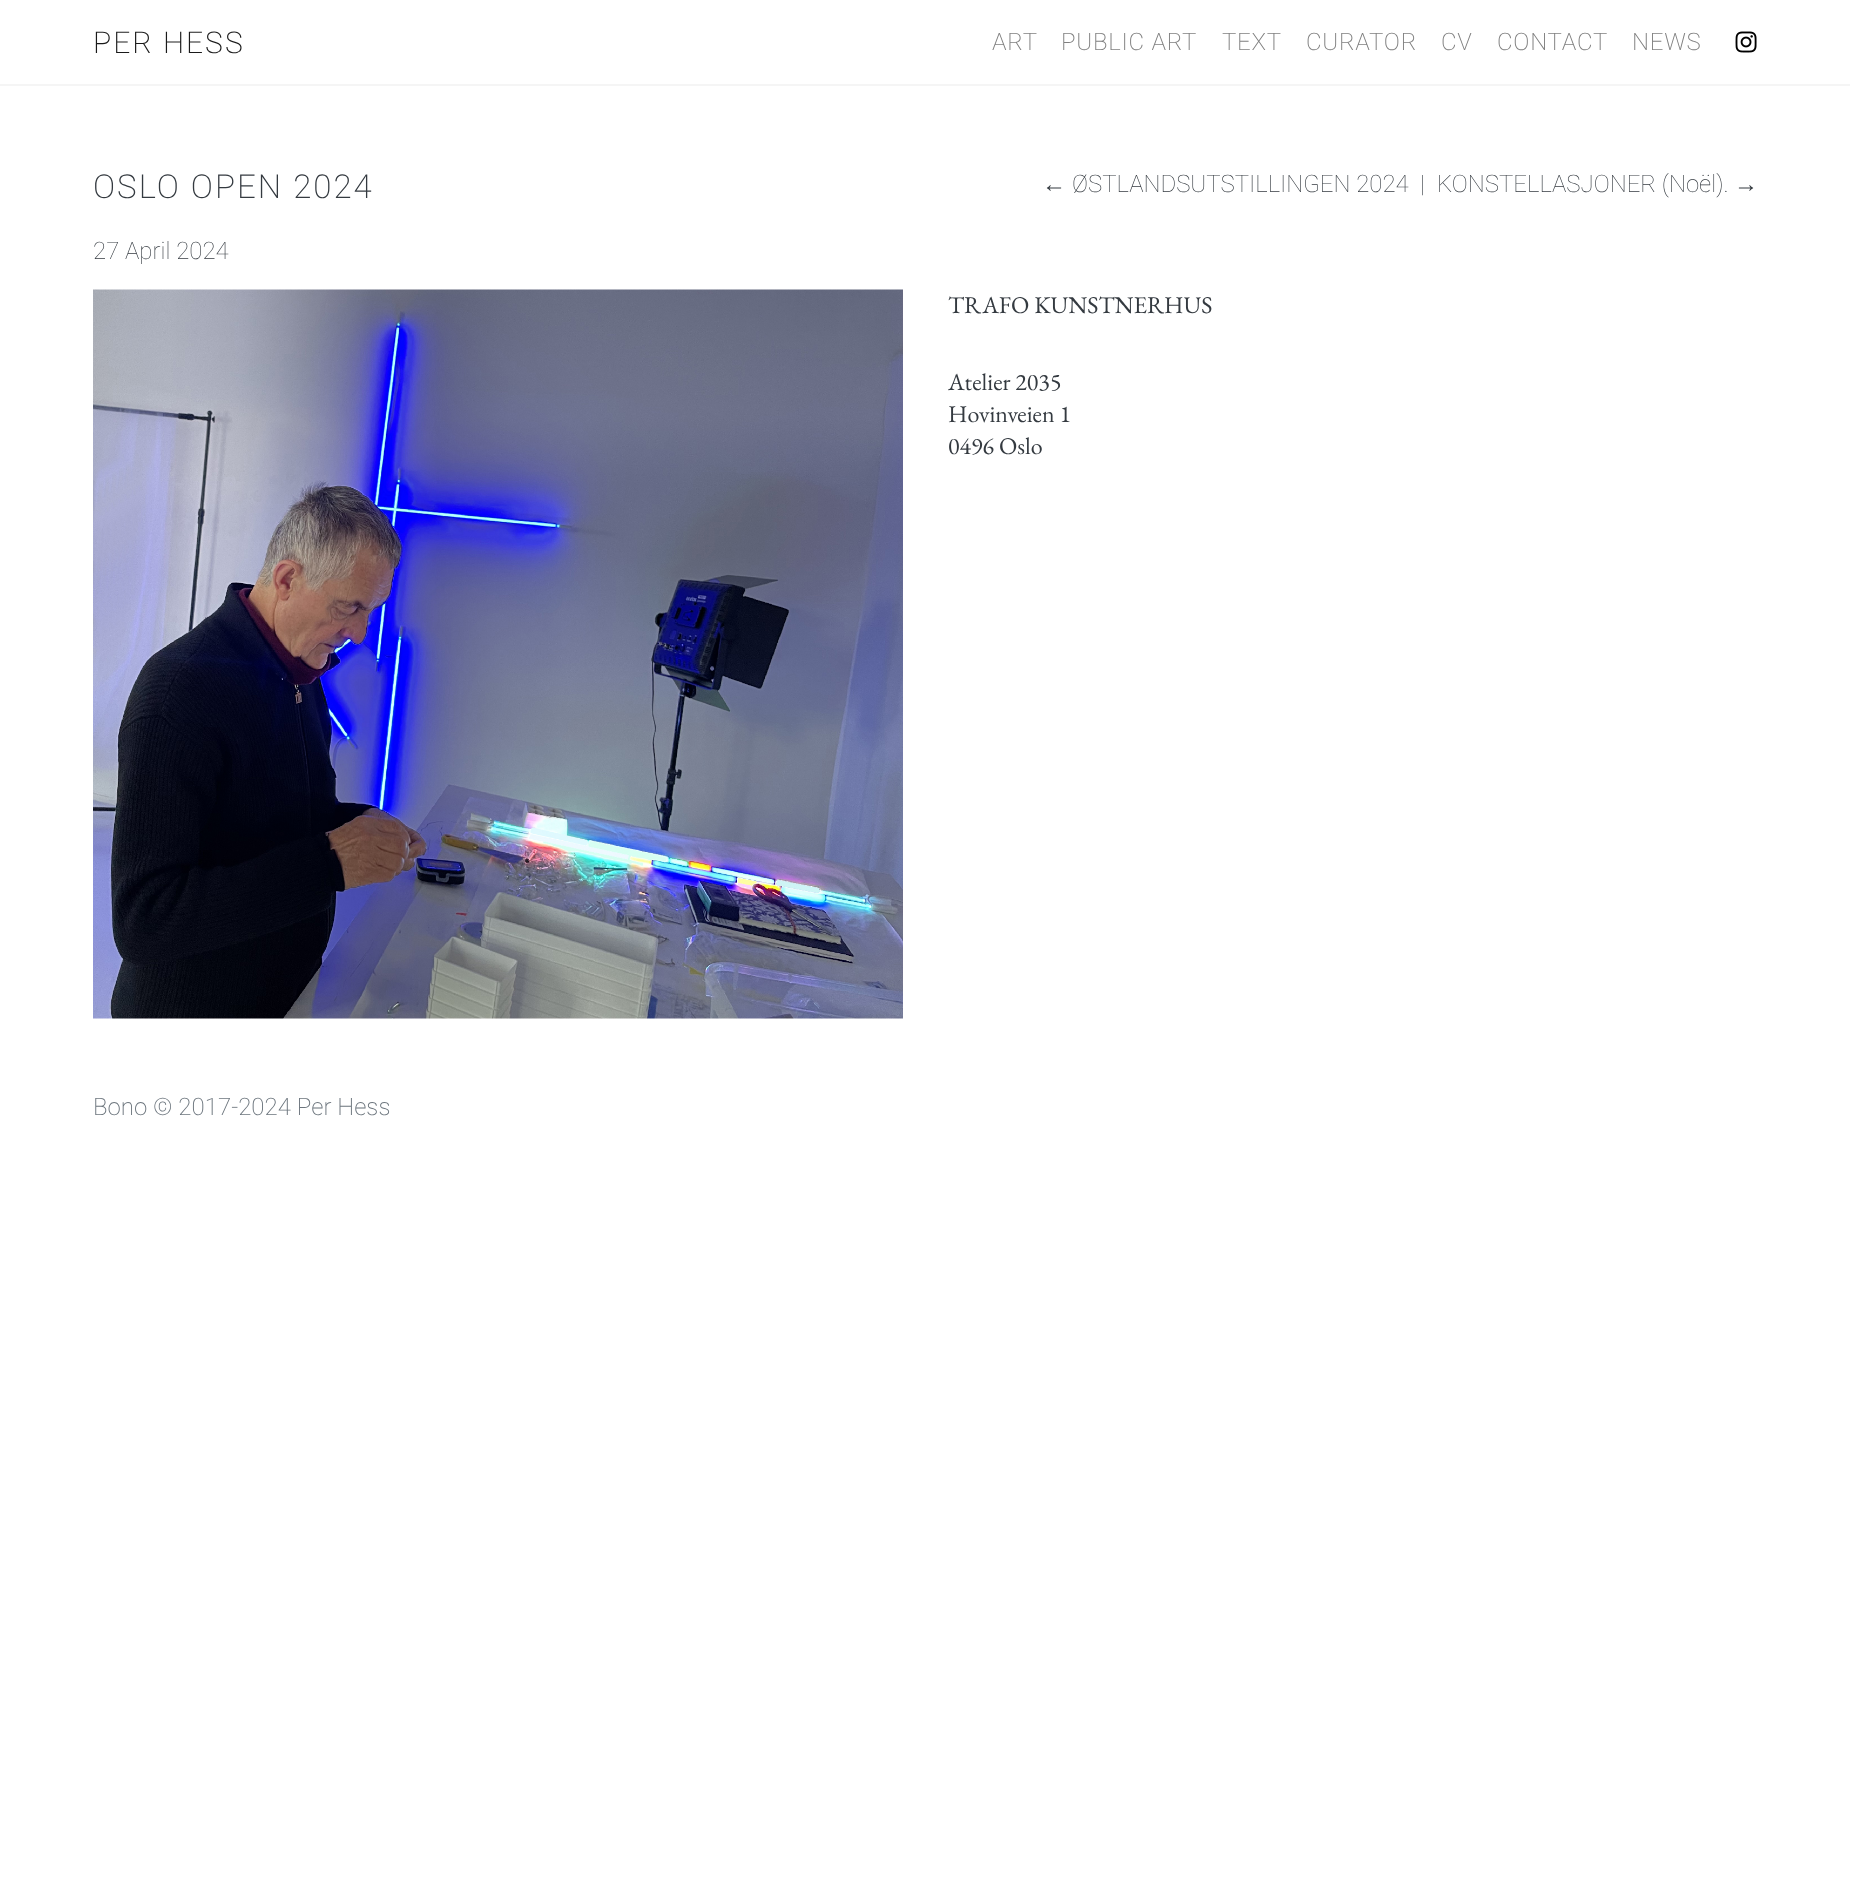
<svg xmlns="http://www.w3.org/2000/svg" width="1850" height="1900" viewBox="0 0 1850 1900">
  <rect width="100%" height="100%" fill="#fff"/>
  <path d="M0 84h1850v2H0z" fill="#f5f5f5"/>
  <image x="1735" y="31" width="22" height="22" href="img/1.png"/>
  <image x="93" y="289" width="810" height="730" href="img/2.png"/>
  <text x="93" y="53" font-family="Roboto" font-size="30" font-weight="200" letter-spacing="2" fill="#1a1a1a">PER HESS</text>
  <g font-family="Roboto" font-size="24" font-weight="200" letter-spacing="0.75" fill="#808080">
    <text x="992" y="50">ART</text>
    <text x="1061" y="50">PUBLIC ART</text>
    <text x="1222" y="50">TEXT</text>
    <text x="1306" y="50">CURATOR</text>
    <text x="1441" y="50">CV</text>
    <text x="1497" y="50">CONTACT</text>
    <text x="1632" y="50">NEWS</text>
  </g>
  <text x="93" y="198" font-family="Roboto" font-size="33" font-weight="200" letter-spacing="2" fill="#343a40">OSLO OPEN 2024</text>
  <text x="93" y="259" font-family="Roboto" font-size="24" font-weight="100" fill="#343a40">27 April 2024</text>
  <text x="1042" y="192" font-family="Liberation Sans" font-size="24" fill="#343a40">←</text>
  <g font-family="Roboto" font-size="24" font-weight="100" fill="#343a40">
    <text x="1072" y="192">ØSTLANDSUTSTILLINGEN 2024</text>
    <text x="1420" y="192">|</text>
    <text x="1437" y="192">KONSTELLASJONER (Noël).</text>
  </g>
  <text x="1734" y="192" font-family="Liberation Sans" font-size="24" fill="#343a40">→</text>
  <g font-family="EB Garamond" font-size="24" fill="#343a40">
    <text x="948" y="313">TRAFO KUNSTNERHUS</text>
    <text x="948" y="390">Atelier 2035</text>
    <text x="948" y="422">Hovinveien 1</text>
    <text x="948" y="454">0496 Oslo</text>
  </g>
  <text x="93" y="1115" font-family="Roboto" font-size="24" font-weight="200" fill="#6c757d">Bono © 2017-2024 Per Hess</text>
</svg>
